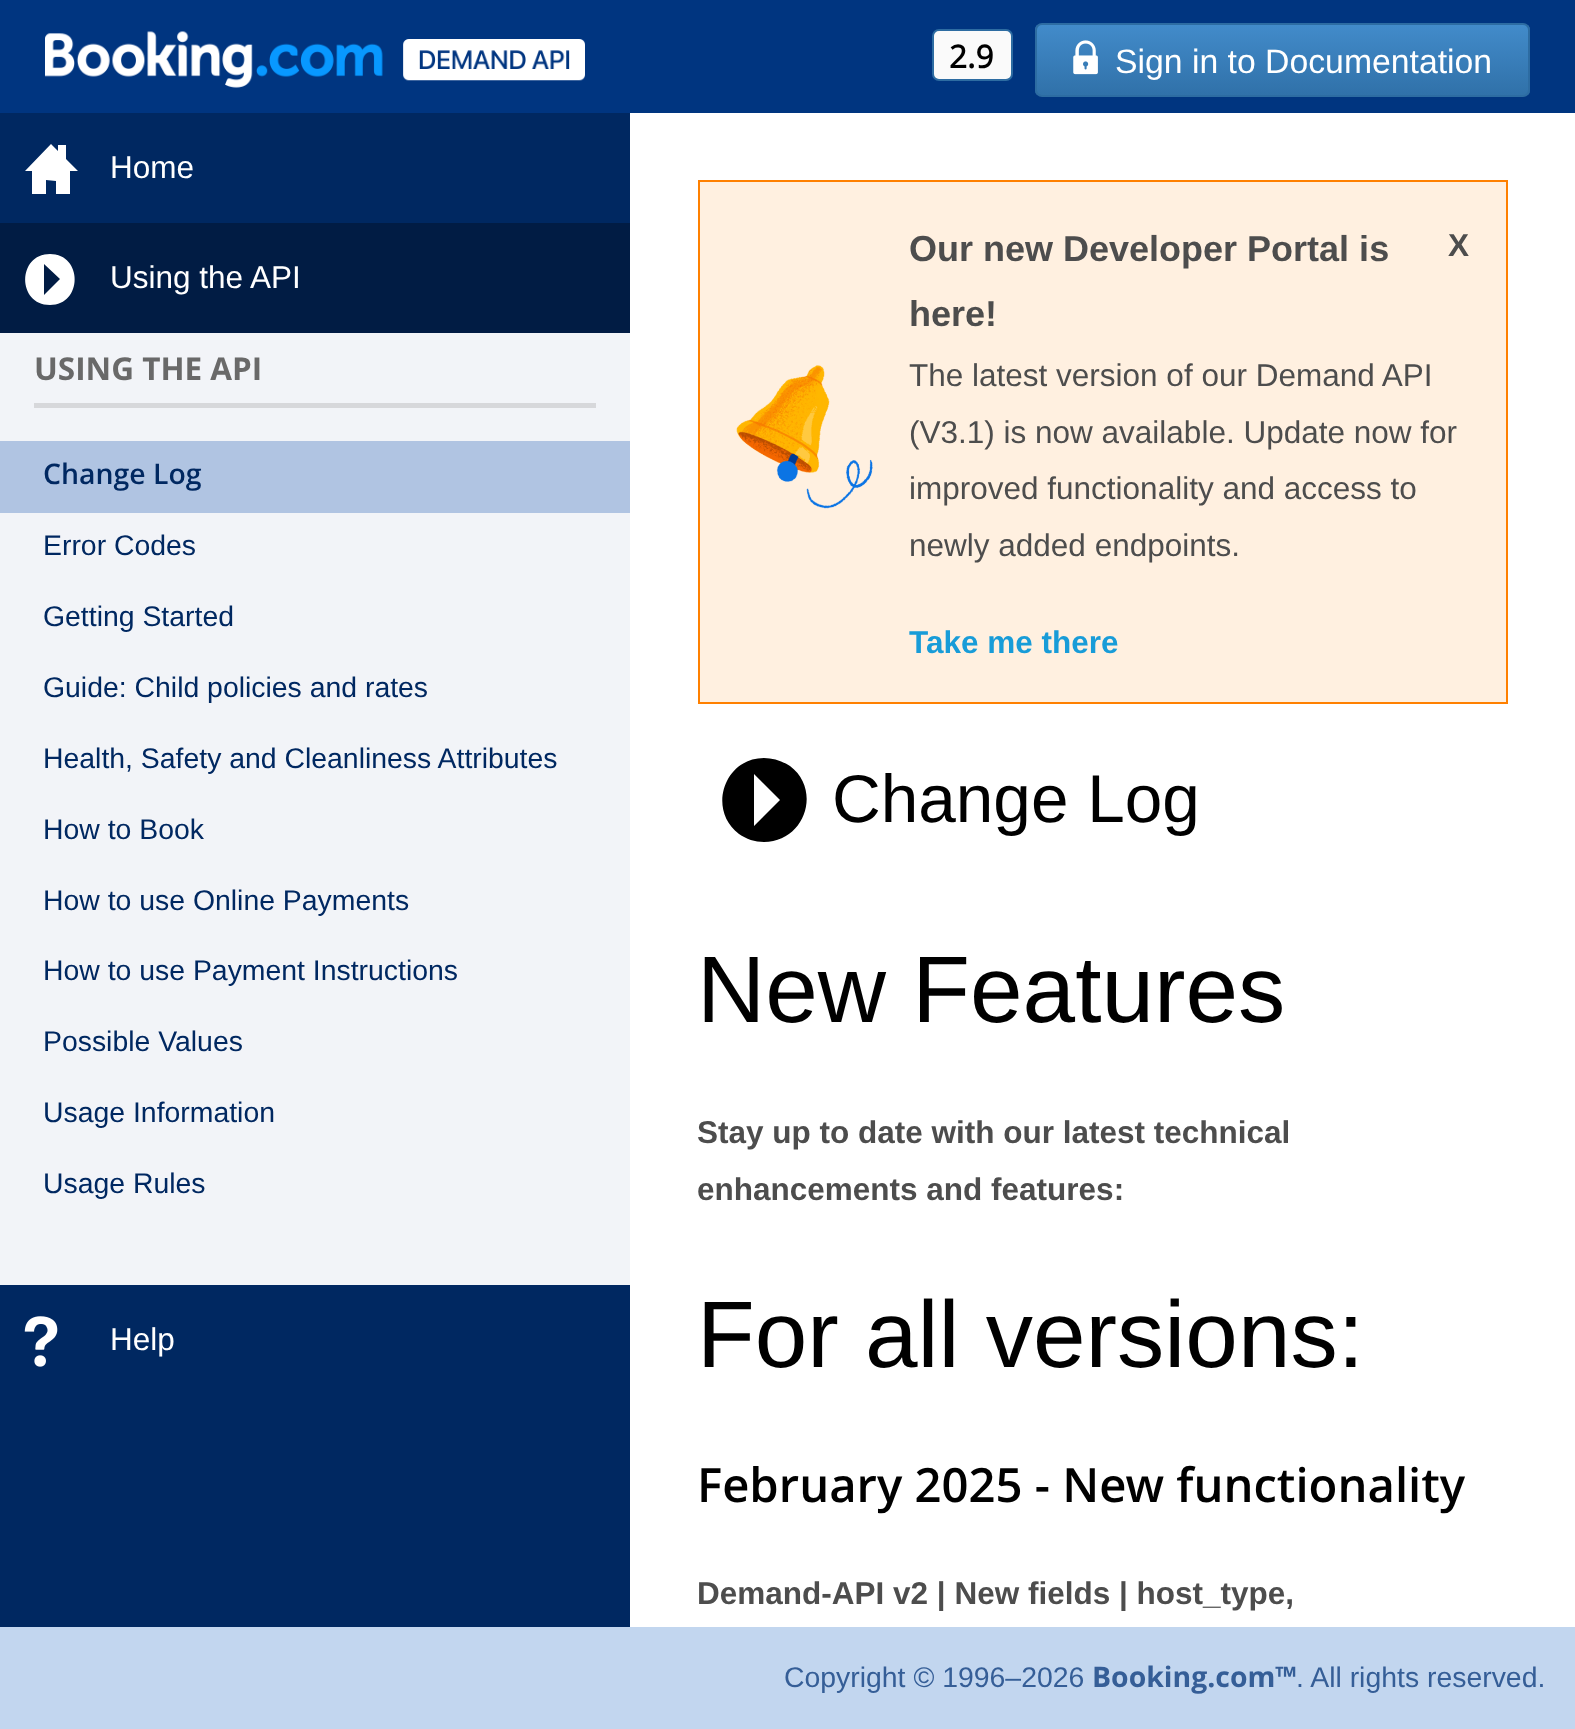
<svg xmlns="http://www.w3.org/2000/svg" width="1575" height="1729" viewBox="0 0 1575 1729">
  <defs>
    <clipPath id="clip1"><rect x="1035" y="23" width="495" height="74" rx="7"/></clipPath>
    <linearGradient id="g1" gradientUnits="userSpaceOnUse" x1="1283" y1="25" x2="1283" y2="95"><stop offset="0" stop-color="#428bca"/><stop offset="1" stop-color="#3071a9"/></linearGradient>
  </defs>
  <rect width="100%" height="100%" fill="#fff"/>
  <path d="M0 0h1575v113H0z" fill="#003580"/>
  <image x="45" y="31" width="540" height="57" href="img/1.png"/>
  <rect x="933" y="30" width="79" height="50" rx="6" fill="#fafafa" stroke="#2d6ca2" stroke-width="2"/>
  <g clip-path="url(#clip1)">
    <path d="M1035 25h495v70H1035z" fill="url(#g1)"/>
  </g>
  <rect x="1036" y="24" width="493" height="72" rx="6" fill="none" stroke="#2d6ca2" stroke-width="2"/>
  <image x="1073" y="40" width="25" height="35" href="img/2.png"/>
  <path d="M0 113h630v1514H0z" fill="#002861"/>
  <path d="M78 171H70V194H56V181L46 180V194H32V171H25L51 144L58 151V145H66V159Z" fill="#fff"/>
  <path d="M0 223h630v110H0z" fill="#011c44"/>
  <path d="M50 254C83 254 83 305 50 305C17 305 17 254 50 254ZM44 295L60 279L44 264Z" fill="#fff"/>
  <path d="M0 333h630v952H0z" fill="#f2f4f8"/>
  <path d="M34 403h562v5H34z" fill="#d7d8db"/>
  <path d="M0 441h630v72H0z" fill="#b0c4e2"/>
  <image x="24" y="1316" width="34" height="51" href="img/3.png"/>
  <path d="M699 181h808v522H699z" fill="#fff0e0" stroke="#ff8000" stroke-width="2"/>
  <image x="736" y="365" width="137" height="144" href="img/4.png"/>
  <path d="M764 758C773 758 782 761 790 766C822 790 805 842 764 842C755 842 746 839 739 834C707 810 724 758 764 758ZM754 826L780 800L754 774Z" fill="#000"/>
  <path d="M0 1627h1575v102H0z" fill="#c2d6ef"/>
  <text x="949" y="68" font-family="Open Sans" font-size="31.5" font-weight="bold" fill="#000">2.9</text>
  <text x="1115" y="73" font-family="Liberation Sans" font-size="33.75" fill="#fff">Sign in to Documentation</text>
  <g font-family="Liberation Sans" font-size="31.5" fill="#fff">
    <text x="110" y="178">Home</text>
    <text x="110" y="288">Using the API</text>
  </g>
  <text x="34" y="380" font-family="'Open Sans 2'" font-size="31.5" font-weight="bold" fill="#696969">USING THE API</text>
  <text x="43" y="484" font-family="Open Sans" font-size="28.4" font-weight="600" fill="#002861">Change Log</text>
  <g font-family="Liberation Sans" font-size="28.4" fill="#002861">
    <text x="43" y="555">Error Codes</text>
    <text x="43" y="626">Getting Started</text>
    <text x="43" y="697">Guide: Child policies and rates</text>
    <text x="43" y="768">Health, Safety and Cleanliness Attributes</text>
    <text x="43" y="839">How to Book</text>
    <text x="43" y="910">How to use Online Payments</text>
    <text x="43" y="980">How to use Payment Instructions</text>
    <text x="43" y="1051">Possible Values</text>
    <text x="43" y="1122">Usage Information</text>
    <text x="43" y="1193">Usage Rules</text>
  </g>
  <text x="110" y="1350" font-family="Liberation Sans" font-size="31.5" fill="#fff">Help</text>
  <text x="909" y="261" font-family="Liberation Sans" font-size="36" font-weight="bold" fill="#4d4d4d">Our new Developer Portal is</text>
  <text x="1448" y="256" font-family="Liberation Sans" font-size="31.5" font-weight="bold" fill="#4d4d4d">X</text>
  <text x="909" y="326" font-family="Liberation Sans" font-size="36" font-weight="bold" fill="#4d4d4d">here!</text>
  <g font-family="Liberation Sans" font-size="31.5" fill="#4d4d4d">
    <text x="909" y="386">The latest version of our Demand API</text>
    <text x="909" y="443">(V3.1) is now available. Update now for</text>
    <text x="909" y="499">improved functionality and access to</text>
    <text x="909" y="556">newly added endpoints.</text>
  </g>
  <text x="909" y="653" font-family="Liberation Sans" font-size="31.5" font-weight="bold" fill="#189cd8">Take me there</text>
  <text x="832" y="822" font-family="Liberation Sans" font-size="67.5" fill="#000">Change Log</text>
  <text x="697" y="1022" font-family="Liberation Sans" font-size="94.5" fill="#000">New Features</text>
  <g font-family="Liberation Sans" font-size="31.5" font-weight="bold" fill="#4d4d4d">
    <text x="697" y="1143">Stay up to date with our latest technical</text>
    <text x="697" y="1200">enhancements and features:</text>
  </g>
  <text x="697" y="1367" font-family="Liberation Sans" font-size="94.5" fill="#000">For all versions:</text>
  <text x="697" y="1502" font-family="Open Sans" font-size="47.25" font-weight="600" fill="#000">February 2025 - New functionality</text>
  <text x="697" y="1604" font-family="Liberation Sans" font-size="31.5" font-weight="bold" fill="#4d4d4d">Demand-API v2 | New fields | host_type,</text>
  <text x="784" y="1687" font-family="Liberation Sans" font-size="28.4" fill="#355e97">Copyright © 1996–2026</text>
  <text x="1092" y="1687" font-family="'Open Sans 2'" font-size="28.4" font-weight="bold" fill="#355e97">Booking.com™</text>
  <text x="1296" y="1687" font-family="Liberation Sans" font-size="28.4" fill="#355e97">. All rights reserved.</text>
</svg>
